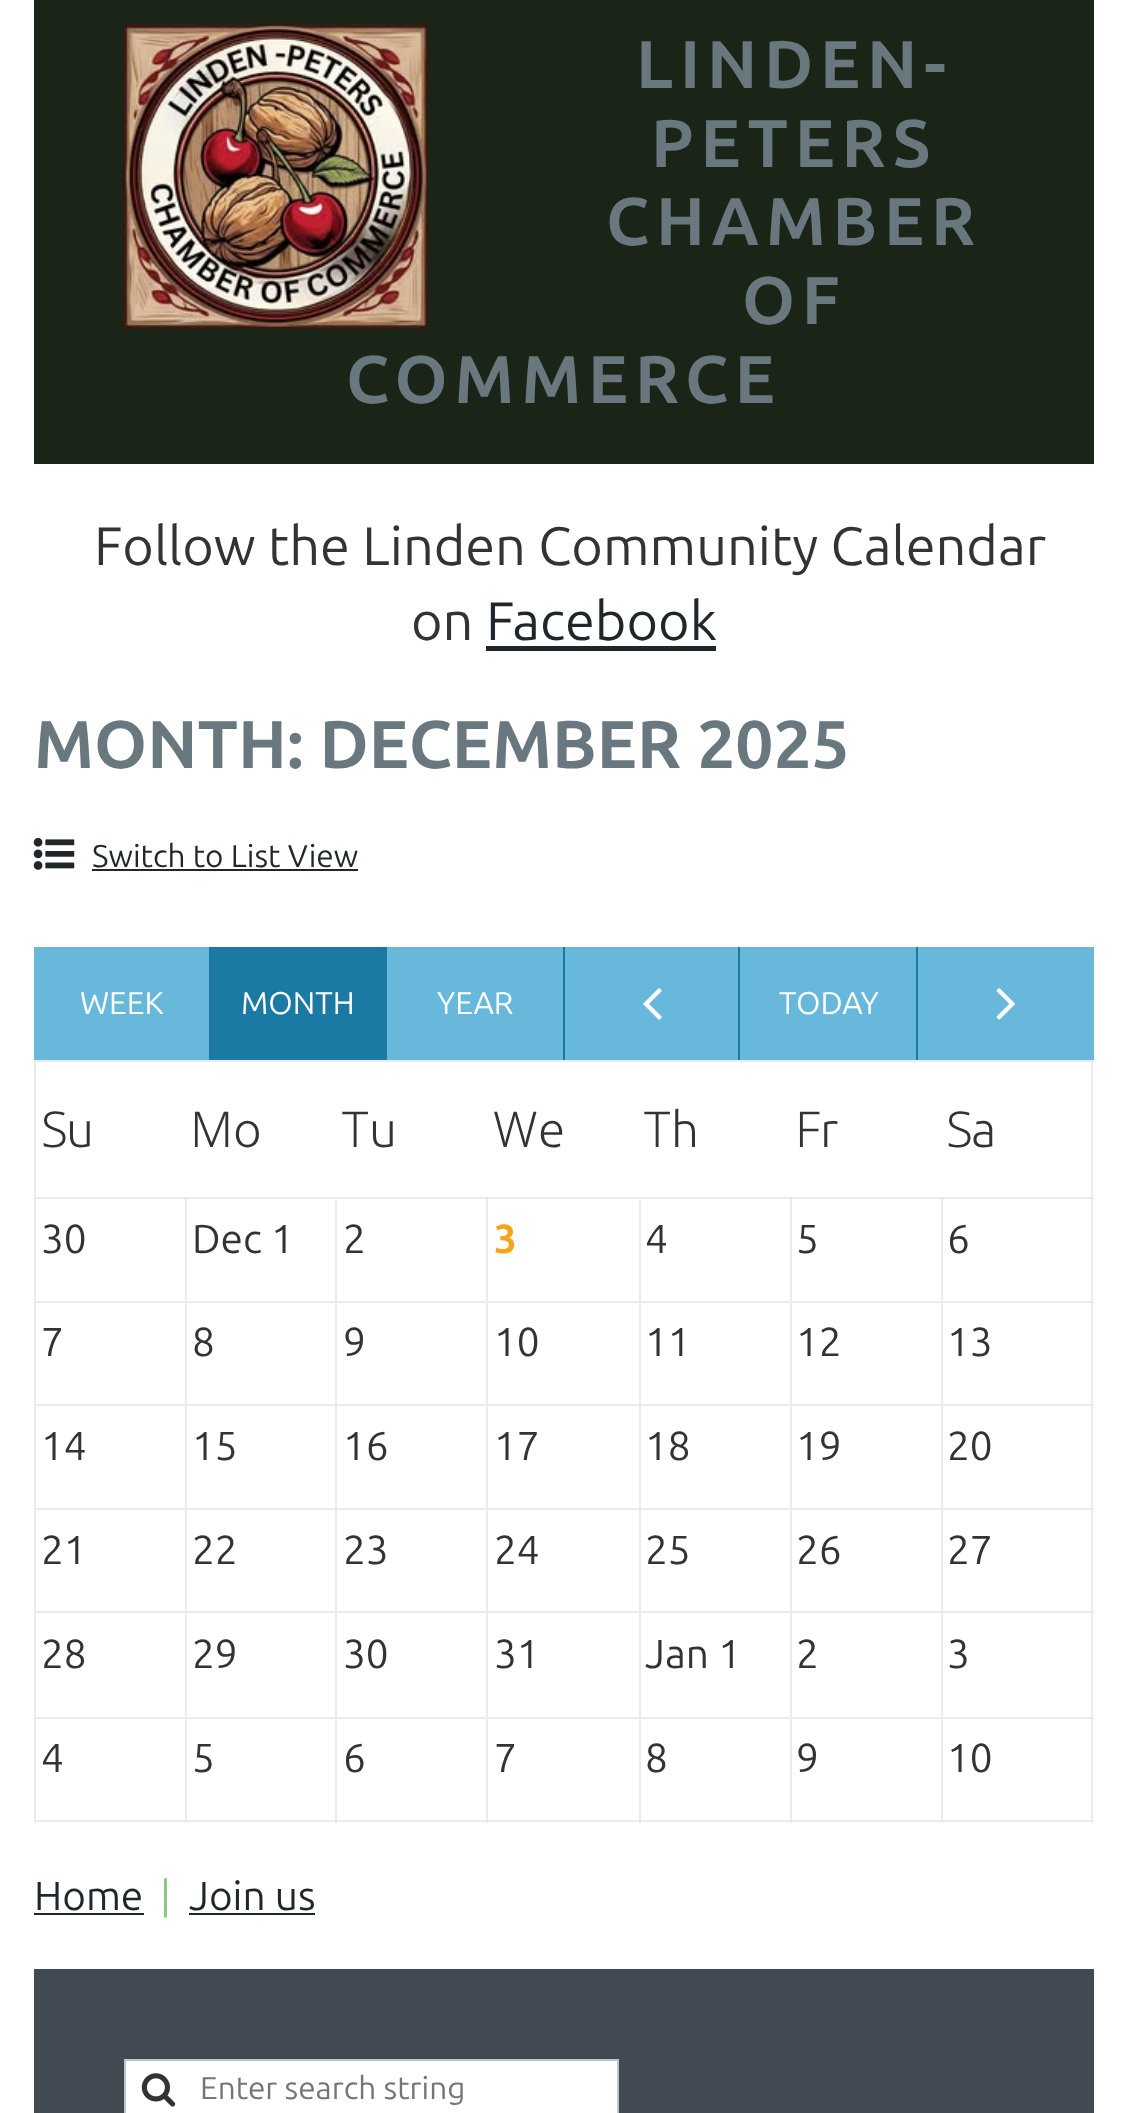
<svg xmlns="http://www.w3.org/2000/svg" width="1126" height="2113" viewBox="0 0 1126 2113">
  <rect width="100%" height="100%" fill="#fff"/>
  <path d="M34 0h1060v464H34z" fill="#1a2517"/>
  <image x="123" y="24" width="305" height="305" href="img/1.png"/>
  <path d="M486 646h230v5H486z" fill="#1f272b"/>
  <image x="33" y="838" width="42" height="32" href="img/2.png"/>
  <path d="M92 869h266v2H92z" fill="#1f272b"/>
  <path d="M34 947h175v113H34z" fill="#67b8db"/>
  <path d="M209 947h178v113H209z" fill="#1b7aa3"/>
  <path d="M387 947h176v113H387z" fill="#67b8db"/>
  <path d="M563 947h2v113H563z" fill="#1b7aa3"/>
  <path d="M565 947h173v113H565z" fill="#67b8db"/>
  <image x="643" y="988" width="19" height="32" href="img/3.png"/>
  <path d="M738 947h2v113H738z" fill="#1b7aa3"/>
  <path d="M740 947h176v113H740z" fill="#67b8db"/>
  <path d="M916 947h2v113H916z" fill="#1b7aa3"/>
  <path d="M918 947h176v113H918z" fill="#67b8db"/>
  <image x="996" y="988" width="19" height="32" href="img/4.png"/>
  <path d="M34 1060h1060v2H34z" fill="#ebebeb"/>
  <path d="M1091 1060h2v763H1091z" fill="#ebebeb"/>
  <path d="M34 1820h1060v2H34z" fill="#ebebeb"/>
  <path d="M34 1060h2v763H34z" fill="#ebebeb"/>
  <path d="M34 1197h1060v2H34z" fill="#ebebeb"/>
  <path d="M34 1301h1060v2H34z" fill="#ebebeb"/>
  <path d="M34 1404h1060v2H34z" fill="#ebebeb"/>
  <path d="M34 1508h1060v2H34z" fill="#ebebeb"/>
  <path d="M34 1611h1060v2H34z" fill="#ebebeb"/>
  <path d="M34 1717h1060v2H34z" fill="#ebebeb"/>
  <path d="M185 1796h2v27H185z" fill="#ebebeb"/>
  <path d="M185 1692h2v106H185z" fill="#ebebeb"/>
  <path d="M185 1589h2v105H185z" fill="#ebebeb"/>
  <path d="M185 1485h2v106H185z" fill="#ebebeb"/>
  <path d="M185 1382h2v105H185z" fill="#ebebeb"/>
  <path d="M185 1276h2v108H185z" fill="#ebebeb"/>
  <path d="M185 1197h2v81H185z" fill="#ebebeb"/>
  <path d="M335 1796h2v27H335z" fill="#ebebeb"/>
  <path d="M335 1692h2v106H335z" fill="#ebebeb"/>
  <path d="M335 1589h2v105H335z" fill="#ebebeb"/>
  <path d="M335 1485h2v106H335z" fill="#ebebeb"/>
  <path d="M335 1382h2v105H335z" fill="#ebebeb"/>
  <path d="M335 1276h2v108H335z" fill="#ebebeb"/>
  <path d="M335 1197h2v81H335z" fill="#ebebeb"/>
  <path d="M486 1796h2v27H486z" fill="#ebebeb"/>
  <path d="M486 1692h2v106H486z" fill="#ebebeb"/>
  <path d="M486 1589h2v105H486z" fill="#ebebeb"/>
  <path d="M486 1485h2v106H486z" fill="#ebebeb"/>
  <path d="M486 1382h2v105H486z" fill="#ebebeb"/>
  <path d="M486 1276h2v108H486z" fill="#ebebeb"/>
  <path d="M486 1197h2v81H486z" fill="#ebebeb"/>
  <path d="M639 1796h2v27H639z" fill="#ebebeb"/>
  <path d="M639 1692h2v106H639z" fill="#ebebeb"/>
  <path d="M639 1589h2v105H639z" fill="#ebebeb"/>
  <path d="M639 1485h2v106H639z" fill="#ebebeb"/>
  <path d="M639 1382h2v105H639z" fill="#ebebeb"/>
  <path d="M639 1276h2v108H639z" fill="#ebebeb"/>
  <path d="M639 1197h2v81H639z" fill="#ebebeb"/>
  <path d="M790 1796h2v27H790z" fill="#ebebeb"/>
  <path d="M790 1692h2v106H790z" fill="#ebebeb"/>
  <path d="M790 1589h2v105H790z" fill="#ebebeb"/>
  <path d="M790 1485h2v106H790z" fill="#ebebeb"/>
  <path d="M790 1382h2v105H790z" fill="#ebebeb"/>
  <path d="M790 1276h2v108H790z" fill="#ebebeb"/>
  <path d="M790 1197h2v81H790z" fill="#ebebeb"/>
  <path d="M941 1796h2v27H941z" fill="#ebebeb"/>
  <path d="M941 1692h2v106H941z" fill="#ebebeb"/>
  <path d="M941 1589h2v105H941z" fill="#ebebeb"/>
  <path d="M941 1485h2v106H941z" fill="#ebebeb"/>
  <path d="M941 1382h2v105H941z" fill="#ebebeb"/>
  <path d="M941 1276h2v108H941z" fill="#ebebeb"/>
  <path d="M941 1197h2v81H941z" fill="#ebebeb"/>
  <path d="M34 1913h110v2H34z" fill="#1f272b"/>
  <path d="M189 1913h126v2H189z" fill="#1f272b"/>
  <path d="M34 1969h1060v144H34z" fill="#414a53"/>
  <path d="M125 2060h493v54H125z" fill="#fff" stroke="#b8c6cd" stroke-width="2"/>
  <image x="141" y="2073" width="35" height="34" href="img/5.png"/>
  <g font-family="Ubuntu" font-size="67.5" font-weight="bold" letter-spacing="6.75" fill="#69777f">
    <text x="636" y="88">LINDEN-</text>
    <text x="651" y="167">PETERS</text>
    <text x="606" y="245">CHAMBER</text>
    <text x="742" y="324">OF</text>
    <text x="346" y="403">COMMERCE</text>
  </g>
  <g font-family="Ubuntu" font-size="54" fill="#333">
    <text x="94" y="565">Follow the Linden Community Calendar</text>
    <text x="411" y="640">on</text>
  </g>
  <text x="486" y="640" font-family="Ubuntu" font-size="54" fill="#1f272b">Facebook</text>
  <text x="34" y="768" font-family="Ubuntu" font-size="67.5" font-weight="bold" fill="#69777f">MONTH: DECEMBER 2025</text>
  <text x="92" y="867" font-family="Ubuntu" font-size="31.5" fill="#1f272b">Switch to List View</text>
  <g font-family="Ubuntu" font-size="31.5" fill="#fff">
    <text x="80" y="1014">WEEK</text>
    <text x="241" y="1014">MONTH</text>
    <text x="437" y="1014">YEAR</text>
    <text x="779" y="1014">TODAY</text>
  </g>
  <text x="41" y="1147" font-family="Noto Sans" font-size="49.5" font-weight="300" letter-spacing="2250" fill="#333">S</text>
  <text x="66" y="1147" font-family="Ubuntu" font-size="49.5" font-weight="300" letter-spacing="2250" fill="#333">u</text>
  <text x="190" y="1147" font-family="Noto Sans" font-size="49.5" font-weight="300" letter-spacing="2250" fill="#333">M</text>
  <text x="233" y="1147" font-family="Ubuntu" font-size="49.5" font-weight="300" letter-spacing="2250" fill="#333">o</text>
  <text x="342" y="1147" font-family="Noto Sans" font-size="49.5" font-weight="300" letter-spacing="2250" fill="#333">T</text>
  <text x="369" y="1147" font-family="Ubuntu" font-size="49.5" font-weight="300" letter-spacing="2250" fill="#333">u</text>
  <text x="493" y="1147" font-family="Noto Sans" font-size="49.5" font-weight="300" letter-spacing="2250" fill="#333">W</text>
  <text x="538" y="1147" font-family="Ubuntu" font-size="49.5" font-weight="300" letter-spacing="2250" fill="#333">e</text>
  <text x="644" y="1147" font-family="Noto Sans" font-size="49.5" font-weight="300" letter-spacing="2250" fill="#333">T</text>
  <text x="671" y="1147" font-family="Ubuntu" font-size="49.5" font-weight="300" letter-spacing="2250" fill="#333">h</text>
  <text x="795" y="1147" font-family="Noto Sans" font-size="49.5" font-weight="300" letter-spacing="2250" fill="#333">F</text>
  <text x="820" y="1147" font-family="Ubuntu" font-size="49.5" font-weight="300" letter-spacing="2250" fill="#333">r</text>
  <text x="946" y="1147" font-family="Noto Sans" font-size="49.5" font-weight="300" letter-spacing="2250" fill="#333">S</text>
  <text x="971" y="1147" font-family="Ubuntu" font-size="49.5" font-weight="300" letter-spacing="2250" fill="#333">a</text>
  <g font-family="Ubuntu" font-size="40.5" fill="#333">
    <text x="41" y="1253">30</text>
    <text x="192" y="1253">Dec 1</text>
    <text x="343" y="1253">2</text>
  </g>
  <text x="494" y="1253" font-family="Ubuntu" font-size="40.5" font-weight="bold" fill="#f8a31d">3</text>
  <g font-family="Ubuntu" font-size="40.5" fill="#333">
    <text x="645" y="1253">4</text>
    <text x="796" y="1253">5</text>
    <text x="947" y="1253">6</text>
    <text x="41" y="1356">7</text>
    <text x="192" y="1356">8</text>
    <text x="343" y="1356">9</text>
    <text x="494" y="1356">10</text>
    <text x="645" y="1356">11</text>
    <text x="796" y="1356">12</text>
    <text x="947" y="1356">13</text>
    <text x="41" y="1460">14</text>
    <text x="192" y="1460">15</text>
    <text x="343" y="1460">16</text>
    <text x="494" y="1460">17</text>
    <text x="645" y="1460">18</text>
    <text x="796" y="1460">19</text>
    <text x="947" y="1460">20</text>
    <text x="41" y="1564">21</text>
    <text x="192" y="1564">22</text>
    <text x="343" y="1564">23</text>
    <text x="494" y="1564">24</text>
    <text x="645" y="1564">25</text>
    <text x="796" y="1564">26</text>
    <text x="947" y="1564">27</text>
    <text x="41" y="1668">28</text>
    <text x="192" y="1668">29</text>
    <text x="343" y="1668">30</text>
    <text x="494" y="1668">31</text>
    <text x="645" y="1668">Jan 1</text>
    <text x="796" y="1668">2</text>
    <text x="947" y="1668">3</text>
    <text x="41" y="1772">4</text>
    <text x="192" y="1772">5</text>
    <text x="343" y="1772">6</text>
    <text x="494" y="1772">7</text>
    <text x="645" y="1772">8</text>
    <text x="796" y="1772">9</text>
    <text x="947" y="1772">10</text>
  </g>
  <text x="34" y="1910" font-family="Ubuntu" font-size="40.5" fill="#1f272b">Home</text>
  <text x="160" y="1910" font-family="Ubuntu" font-size="40.5" fill="#87c97f">|</text>
  <text x="189" y="1910" font-family="Ubuntu" font-size="40.5" fill="#1f272b">Join us</text>
  <text x="200" y="2099" font-family="Ubuntu" font-size="31.5" fill="#757575">Enter search string</text>
</svg>
